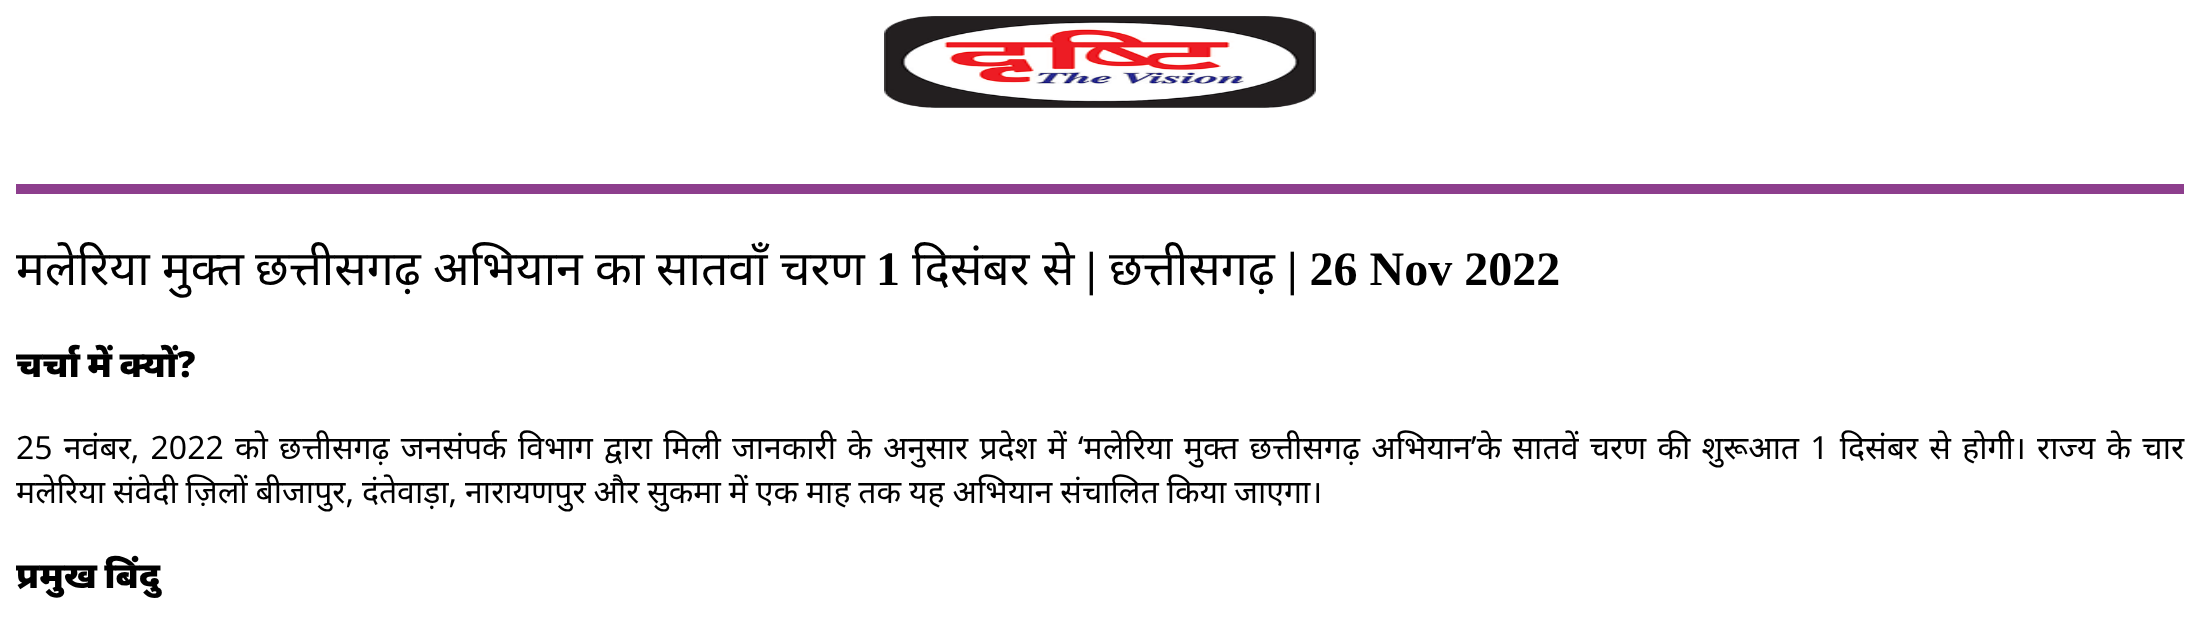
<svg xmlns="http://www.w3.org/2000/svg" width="2199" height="644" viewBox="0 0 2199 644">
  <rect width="100%" height="100%" fill="#fff"/>
  <image x="884" y="16" width="432" height="92" href="img/1.png"/>
  <path d="M16 184h2168v10H16z" fill="#8d3e8d"/>
  <g font-family="Noto Sans" font-size="48" fill="#000">
    <text x="16" y="285">मलेरिया</text>
    <text x="162" y="285">मुक्त</text>
    <text x="255" y="285">छत्तीसगढ़</text>
    <text x="433" y="285">अभियान</text>
    <text x="595" y="285">का</text>
    <text x="656" y="285">सातवाँ</text>
    <text x="780" y="285">चरण</text>
  </g>
  <text x="876" y="285" font-family="Liberation Serif" font-size="48" font-weight="bold" fill="#000">1</text>
  <g font-family="Noto Sans" font-size="48" fill="#000">
    <text x="912" y="285">दिसंबर</text>
    <text x="1042" y="285">से</text>
  </g>
  <text x="1086" y="285" font-family="Liberation Serif" font-size="48" font-weight="bold" fill="#000">|</text>
  <text x="1109" y="285" font-family="Noto Sans" font-size="48" fill="#000">छत्तीसगढ़</text>
  <text x="1287" y="285" font-family="Liberation Serif" font-size="48" font-weight="bold" fill="#000">| 26 Nov 2022</text>
  <text x="16" y="377" word-spacing="-2" font-family="Noto Sans" font-size="36" font-weight="900" fill="#000">चर्चा में क्यों?</text>
  <g font-family="Noto Sans" font-size="32" fill="#000">
    <text x="16" y="459" word-spacing="2.9">25 नवंबर, 2022 को छत्तीसगढ़ जनसंपर्क विभाग द्वारा मिली जानकारी के अनुसार प्रदेश में ‘मलेरिया मुक्त छत्तीसगढ़ अभियान’के सातवें चरण की शुरूआत 1 दिसंबर से होगी। राज्य के चार</text>
    <text x="16" y="503" word-spacing="-0.4">मलेरिया संवेदी ज़िलों बीजापुर, दंतेवाड़ा, नारायणपुर और सुकमा में एक माह तक यह अभियान संचालित किया जाएगा।</text>
  </g>
  <text x="16" y="588" word-spacing="-2" font-family="Noto Sans" font-size="36" font-weight="900" fill="#000">प्रमुख बिंदु</text>
</svg>
